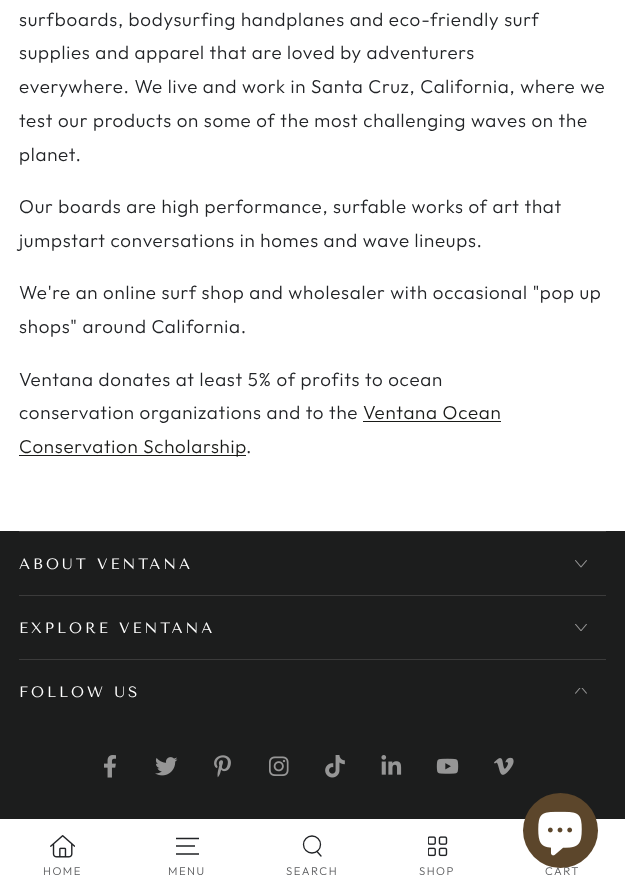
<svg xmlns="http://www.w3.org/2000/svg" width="625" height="893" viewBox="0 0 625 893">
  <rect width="100%" height="100%" fill="#fff"/>
  <path d="M363 421h138v1H363z" fill="#1a1b18"/>
  <path d="M19 455h227v1H19z" fill="#1a1b18"/>
  <path d="M0 531h625v288H0z" fill="#1c1d1d"/>
  <path d="M19 531h587v1H19z" fill="#3b3b3b"/>
  <path d="M19 595h587v1H19z" fill="#3b3b3b"/>
  <image x="575" y="560" width="12" height="8" href="img/1.png"/>
  <path d="M19 659h587v1H19z" fill="#3b3b3b"/>
  <image x="575" y="624" width="12" height="7" href="img/2.png"/>
  <image x="575" y="688" width="12" height="6" href="img/3.png"/>
  <image x="104" y="755" width="12" height="23" href="img/4.png"/>
  <image x="155" y="757" width="23" height="19" href="img/5.png"/>
  <image x="214" y="755" width="17" height="23" href="img/6.png"/>
  <image x="269" y="756" width="20" height="20" href="img/7.png"/>
  <image x="325" y="755" width="20" height="23" href="img/8.png"/>
  <image x="381" y="755" width="21" height="20" href="img/9.png"/>
  <image x="436" y="758" width="23" height="16" href="img/10.png"/>
  <image x="494" y="757" width="20" height="18" href="img/11.png"/>
  <image x="50" y="835" width="25" height="23" href="img/12.png"/>
  <path d="M176 854H199M176 846H195M176 838.5H199" fill="none" stroke="#212326" stroke-width="1.4"/>
  <circle cx="312" cy="844.5" r="8.5" fill="none" stroke="#212326" stroke-width="1.3"/>
  <path d="M317 851.5L321 856" fill="none" stroke="#212326" stroke-width="1.3" stroke-linecap="round"/>
  <image x="428" y="836" width="20" height="21" href="img/13.png"/>
  <g font-family="Outfit" font-size="18.75" font-weight="300" letter-spacing="0.75" fill="#212326">
    <text x="19" y="26">surfboards, bodysurfing handplanes and eco-friendly surf</text>
    <text x="19" y="59">supplies and apparel that are loved by adventurers</text>
    <text x="19" y="93">everywhere. We live and work in Santa Cruz, California, where we</text>
    <text x="19" y="127">test our products on some of the most challenging waves on the</text>
    <text x="19" y="161">planet.</text>
    <text x="19" y="213">Our boards are high performance, surfable works of art that</text>
    <text x="19" y="247">jumpstart conversations in homes and wave lineups.</text>
    <text x="19" y="299">We're an online surf shop and wholesaler with occasional "pop up</text>
    <text x="19" y="333">shops" around California.</text>
    <text x="19" y="386">Ventana donates at least 5% of profits to ocean</text>
    <text x="19" y="419">conservation organizations and to the</text>
  </g>
  <g font-family="Outfit" font-size="18.75" font-weight="300" letter-spacing="0.75" fill="#1a1b18">
    <text x="363" y="419">Ventana Ocean</text>
    <text x="19" y="453">Conservation Scholarship</text>
  </g>
  <text x="246" y="453" font-family="Outfit" font-size="18.75" font-weight="300" letter-spacing="0.75" fill="#212326">.</text>
  <g font-family="Tenor Sans" font-size="15" letter-spacing="3" fill="#fff">
    <text x="19" y="569">ABOUT VENTANA</text>
    <text x="19" y="633">EXPLORE VENTANA</text>
    <text x="19" y="697">FOLLOW US</text>
  </g>
  <g font-family="Outfit" font-size="11.25" font-weight="300" letter-spacing="1.5" fill="#595a5c">
    <text x="43" y="875">HOME</text>
    <text x="168" y="875">MENU</text>
    <text x="286" y="875">SEARCH</text>
    <text x="419" y="875">SHOP</text>
    <text x="545" y="875">CART</text>
  </g>
  <circle cx="560.5" cy="830.5" r="37.5" fill="#5c462b"/>
  <image x="538" y="811" width="44" height="45" href="img/14.png"/>
</svg>
